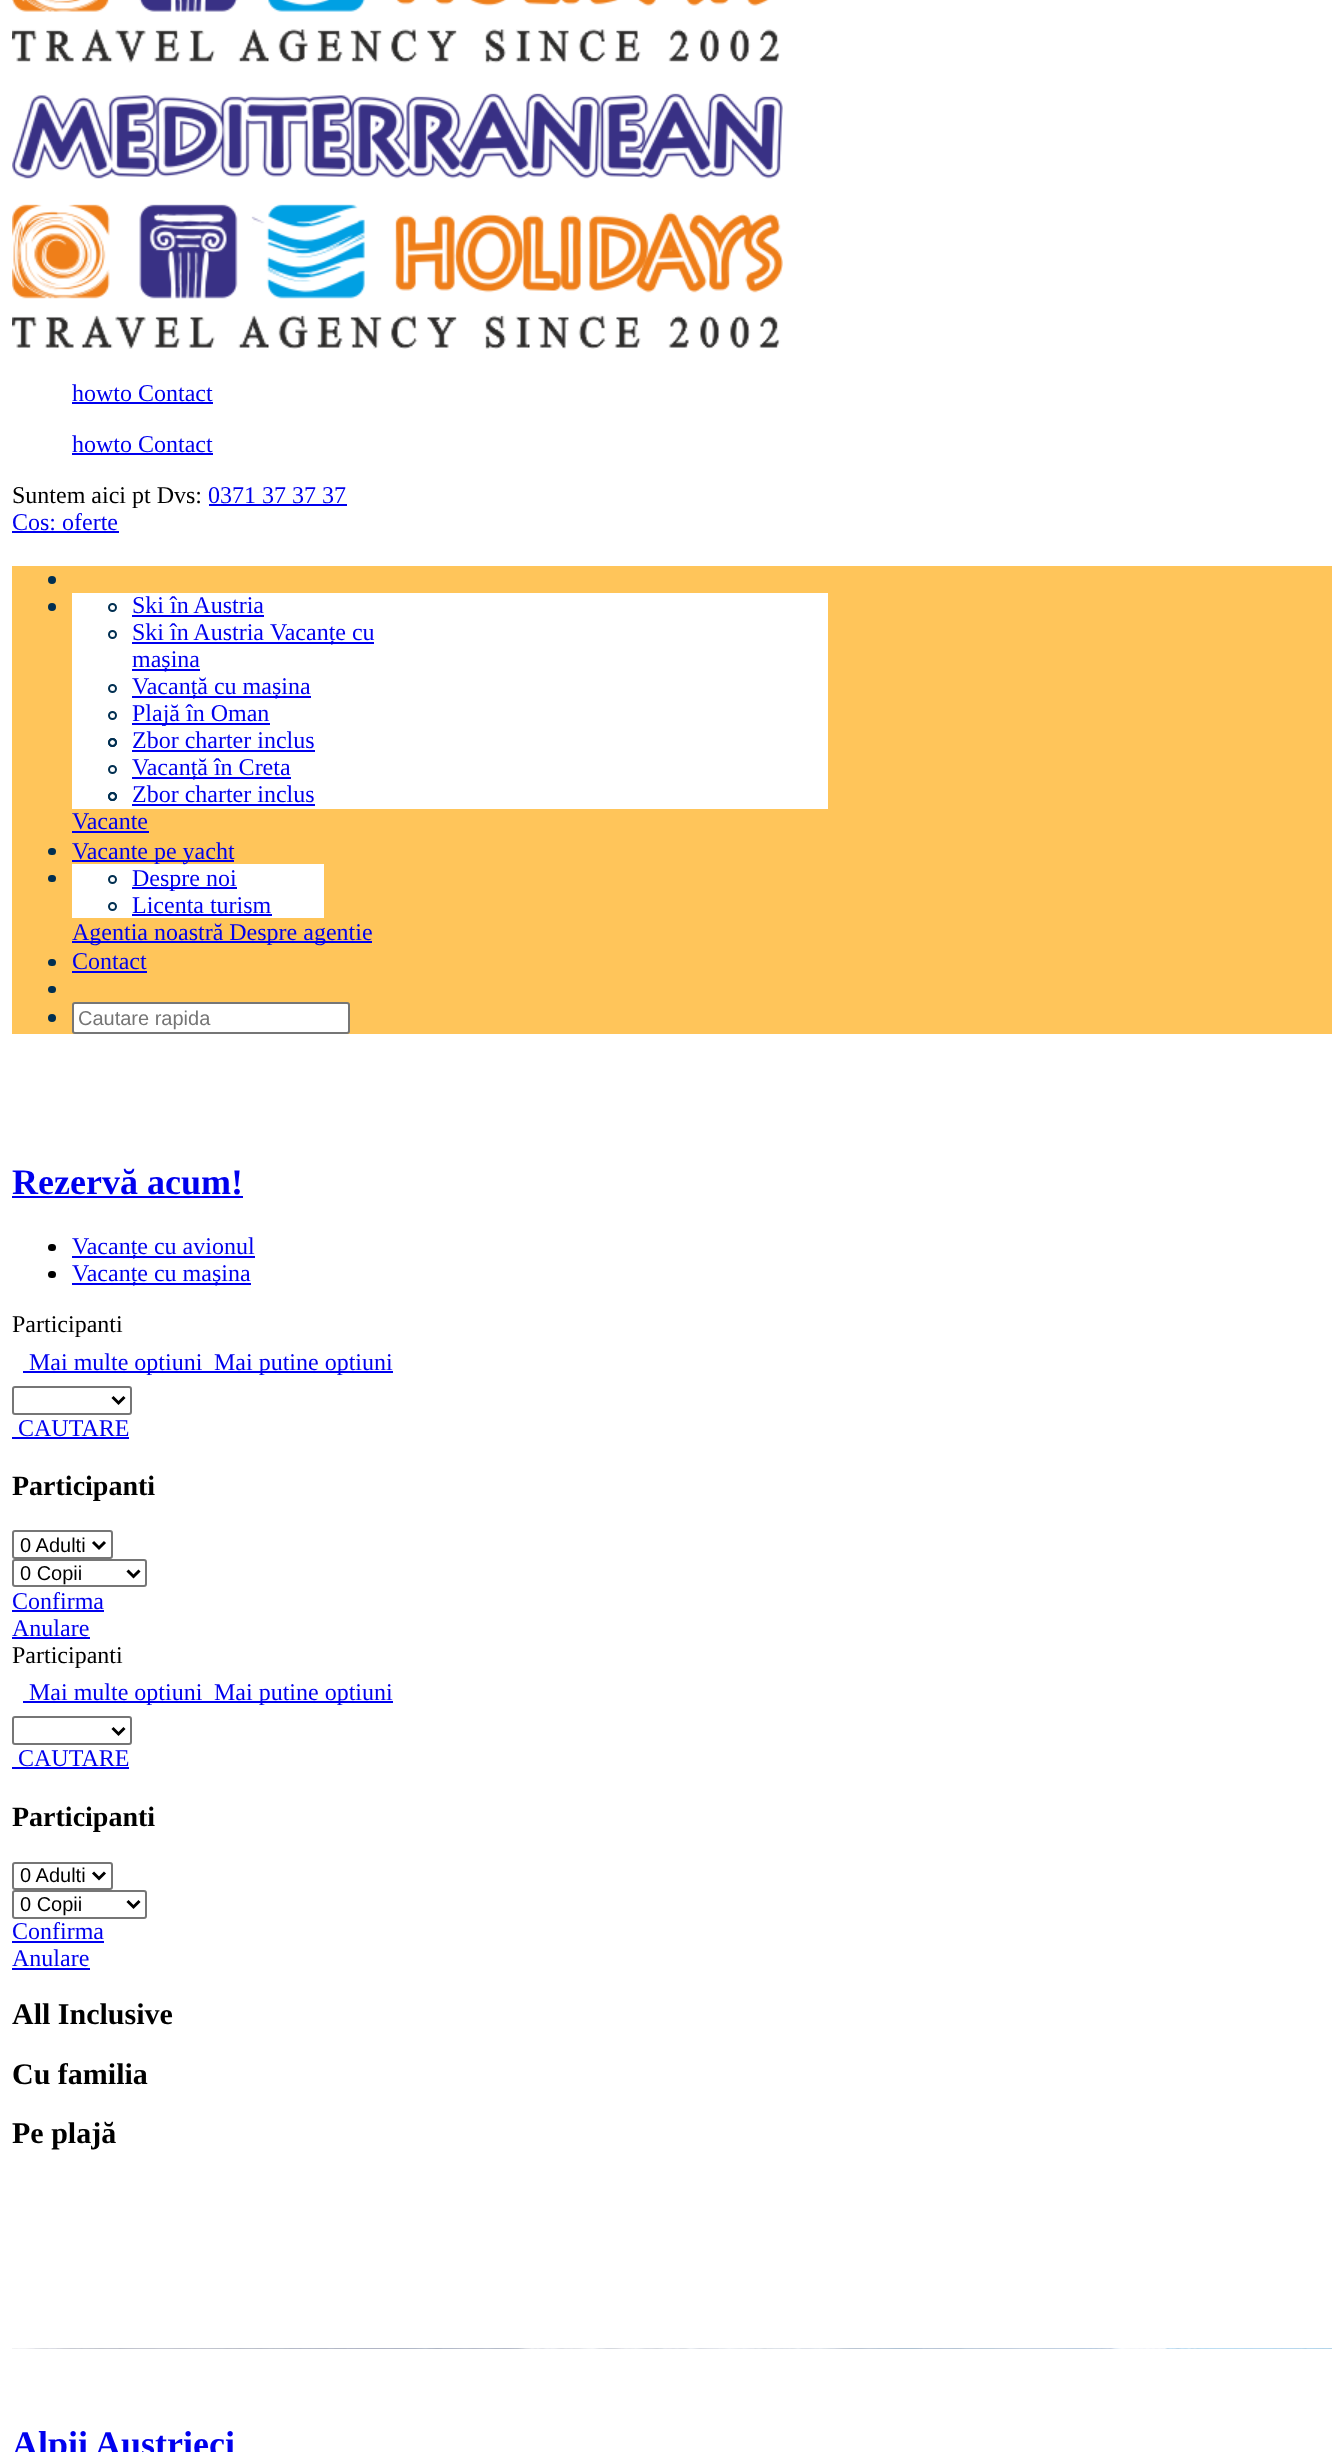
<svg xmlns="http://www.w3.org/2000/svg" width="1343" height="2452" viewBox="0 0 1343 2452">
  <rect width="100%" height="100%" fill="#fff"/>
  <image x="12" y="0" width="768" height="63" href="img/1.png"/>
  <image x="12" y="93" width="771" height="256" href="img/2.png"/>
  <path d="M72 402h141v2H72z" fill="#00e"/>
  <path d="M72 453h141v2H72z" fill="#00e"/>
  <path d="M209 504h138v2H209z" fill="#00e"/>
  <path d="M12 531h107v2H12z" fill="#00e"/>
  <path d="M12 566h1320v468H12z" fill="#ffc55a"/>
  <circle cx="52" cy="580" r="4" fill="#012f51"/>
  <circle cx="52" cy="607" r="4" fill="#012f51"/>
  <path d="M72 593h756v216H72z" fill="#fff"/>
  <circle cx="112.5" cy="607.5" r="3.5" fill="none" stroke="#012f51" stroke-width="2"/>
  <path d="M132 615h132v2H132z" fill="#00e"/>
  <circle cx="112.5" cy="634.5" r="3.5" fill="none" stroke="#012f51" stroke-width="2"/>
  <path d="M132 642h242v2H132z" fill="#00e"/>
  <path d="M132 669h68v2H132z" fill="#00e"/>
  <circle cx="112.5" cy="688.5" r="3.5" fill="none" stroke="#012f51" stroke-width="2"/>
  <path d="M132 696h179v2H132z" fill="#00e"/>
  <circle cx="112.5" cy="715.5" r="3.5" fill="none" stroke="#012f51" stroke-width="2"/>
  <path d="M132 723h138v2H132z" fill="#00e"/>
  <circle cx="112.5" cy="742.5" r="3.5" fill="none" stroke="#012f51" stroke-width="2"/>
  <circle cx="112.5" cy="742.5" r="3.5" fill="none" stroke="#012f51" stroke-width="2"/>
  <path d="M132 750h183v2H132z" fill="#00e"/>
  <circle cx="112.5" cy="769.5" r="3.5" fill="none" stroke="#012f51" stroke-width="2"/>
  <path d="M132 777h159v2H132z" fill="#00e"/>
  <circle cx="112.5" cy="796.5" r="3.5" fill="none" stroke="#012f51" stroke-width="2"/>
  <circle cx="112.5" cy="796.5" r="3.5" fill="none" stroke="#012f51" stroke-width="2"/>
  <path d="M132 804h183v2H132z" fill="#00e"/>
  <path d="M72 831h77v2H72z" fill="#00e"/>
  <rect x="48" y="848" width="8" height="7" rx="3.5" fill="#012f51"/>
  <path d="M72 860h162v2H72z" fill="#00e"/>
  <rect x="48" y="875" width="8" height="7" rx="3.5" fill="#012f51"/>
  <path d="M72 864h252v54H72z" fill="#fff"/>
  <circle cx="112.5" cy="879.5" r="3.5" fill="none" stroke="#012f51" stroke-width="2"/>
  <path d="M132 887h105v2H132z" fill="#00e"/>
  <circle cx="112.5" cy="906.5" r="3.5" fill="none" stroke="#012f51" stroke-width="2"/>
  <path d="M132 914h140v2H132z" fill="#00e"/>
  <path d="M72 941h300v2H72z" fill="#00e"/>
  <rect x="48" y="959" width="8" height="7" rx="3.5" fill="#012f51"/>
  <path d="M72 971h75v2H72z" fill="#00e"/>
  <rect x="48" y="986" width="8" height="7" rx="3.5" fill="#012f51"/>
  <circle cx="52" cy="1018" r="4" fill="#012f51"/>
  <rect x="73" y="1003" width="276" height="30" rx="2" fill="#fff" stroke="#767676" stroke-width="2"/>
  <path d="M12 1196h231v2H12z" fill="#00e"/>
  <rect x="48" y="1244" width="8" height="7" rx="3.5" fill="#000"/>
  <path d="M72 1256h183v2H72z" fill="#00e"/>
  <rect x="48" y="1271" width="8" height="7" rx="3.5" fill="#000"/>
  <path d="M72 1283h179v2H72z" fill="#00e"/>
  <path d="M23 1371h370v2H23z" fill="#00e"/>
  <rect x="13" y="1387" width="118" height="27" rx="2" fill="none" stroke="#767676" stroke-width="2"/>
  <path d="M112.5 1397L118.5 1403L124.5 1397" fill="none" stroke="#000" stroke-width="3"/>
  <path d="M12 1437h117v2H12z" fill="#00e"/>
  <rect x="13" y="1531" width="99" height="27" rx="2" fill="none" stroke="#767676" stroke-width="2"/>
  <path d="M93 1542L99 1548L105 1542" fill="none" stroke="#000" stroke-width="3"/>
  <rect x="13" y="1560" width="133" height="26" rx="2" fill="none" stroke="#767676" stroke-width="2"/>
  <path d="M127.5 1570.5L133.5 1576.5L139.5 1570.5" fill="none" stroke="#000" stroke-width="3"/>
  <path d="M12 1610h92v2H12z" fill="#00e"/>
  <path d="M12 1637h78v2H12z" fill="#00e"/>
  <path d="M23 1701h370v2H23z" fill="#00e"/>
  <rect x="13" y="1717" width="118" height="27" rx="2" fill="none" stroke="#767676" stroke-width="2"/>
  <path d="M112.5 1728L118.5 1734L124.5 1728" fill="none" stroke="#000" stroke-width="3"/>
  <path d="M12 1767h117v2H12z" fill="#00e"/>
  <rect x="13" y="1863" width="99" height="26" rx="2" fill="none" stroke="#767676" stroke-width="2"/>
  <path d="M93 1872.5L99 1878.5L105 1872.5" fill="none" stroke="#000" stroke-width="3"/>
  <rect x="13" y="1891" width="133" height="27" rx="2" fill="none" stroke="#767676" stroke-width="2"/>
  <path d="M127.5 1901L133.5 1907L139.5 1901" fill="none" stroke="#000" stroke-width="3"/>
  <path d="M12 1941h92v2H12z" fill="#00e"/>
  <path d="M12 1968h78v2H12z" fill="#00e"/>
  <image x="12" y="2348" width="1320" height="1" href="img/3.png"/>
  <g font-family="Liberation Serif" font-size="24" fill="#00e">
    <text x="72" y="401">howto Contact</text>
    <text x="72" y="452">howto Contact</text>
  </g>
  <text x="12" y="503" font-family="Liberation Serif" font-size="24" fill="#000">Suntem aici pt Dvs:</text>
  <g font-family="Liberation Serif" font-size="24" fill="#00e">
    <text x="208" y="503">0371 37 37 37</text>
    <text x="12" y="530">Cos: oferte</text>
    <text x="132" y="613">Ski în Austria</text>
    <text x="132" y="640">Ski în Austria</text>
    <text x="270" y="640">Vacanțe cu</text>
    <text x="132" y="667">mașina</text>
    <text x="132" y="694">Vacanță cu mașina</text>
    <text x="132" y="721">Plajă în Oman</text>
    <text x="132" y="748">Zbor charter inclus</text>
    <text x="132" y="775">Vacanță în Creta</text>
    <text x="132" y="802">Zbor charter inclus</text>
    <text x="72" y="829">Vacante</text>
    <text x="72" y="859">Vacante pe yacht</text>
    <text x="132" y="886">Despre noi</text>
    <text x="132" y="913">Licenta turism</text>
    <text x="72" y="940">Agentia noastră Despre agentie</text>
    <text x="72" y="969">Contact</text>
  </g>
  <text x="78" y="1025" font-family="Liberation Sans" font-size="20" fill="#757575">Cautare rapida</text>
  <text x="12" y="1194" font-family="Liberation Serif" font-size="36" font-weight="bold" fill="#00e">Rezervă acum!</text>
  <g font-family="Liberation Serif" font-size="24" fill="#00e">
    <text x="72" y="1254">Vacanțe cu avionul</text>
    <text x="72" y="1281">Vacanțe cu mașina</text>
  </g>
  <text x="12" y="1332" font-family="Liberation Serif" font-size="24" fill="#000">Participanti</text>
  <g font-family="Liberation Serif" font-size="24" fill="#00e">
    <text x="29" y="1370">Mai multe optiuni</text>
    <text x="214" y="1370">Mai putine optiuni</text>
    <text x="18" y="1436">CAUTARE</text>
  </g>
  <text x="12" y="1495" font-family="Liberation Serif" font-size="28" font-weight="bold" fill="#000">Participanti</text>
  <g font-family="Liberation Sans" font-size="20" fill="#000">
    <text x="20" y="1552">0 Adulti</text>
    <text x="20" y="1580">0 Copii</text>
  </g>
  <g font-family="Liberation Serif" font-size="24" fill="#00e">
    <text x="12" y="1609">Confirma</text>
    <text x="12" y="1636">Anulare</text>
  </g>
  <text x="12" y="1663" font-family="Liberation Serif" font-size="24" fill="#000">Participanti</text>
  <g font-family="Liberation Serif" font-size="24" fill="#00e">
    <text x="29" y="1700">Mai multe optiuni</text>
    <text x="214" y="1700">Mai putine optiuni</text>
    <text x="18" y="1766">CAUTARE</text>
  </g>
  <text x="12" y="1826" font-family="Liberation Serif" font-size="28" font-weight="bold" fill="#000">Participanti</text>
  <g font-family="Liberation Sans" font-size="20" fill="#000">
    <text x="20" y="1882">0 Adulti</text>
    <text x="20" y="1911">0 Copii</text>
  </g>
  <g font-family="Liberation Serif" font-size="24" fill="#00e">
    <text x="12" y="1939">Confirma</text>
    <text x="12" y="1966">Anulare</text>
  </g>
  <g font-family="Liberation Serif" font-size="30" font-weight="bold" fill="#000">
    <text x="12" y="2024">All Inclusive</text>
    <text x="12" y="2084">Cu familia</text>
    <text x="12" y="2143">Pe plajă</text>
  </g>
  <text x="12" y="2456" font-family="Liberation Serif" font-size="36" font-weight="bold" fill="#00e">Alpii Austrieci</text>
</svg>
